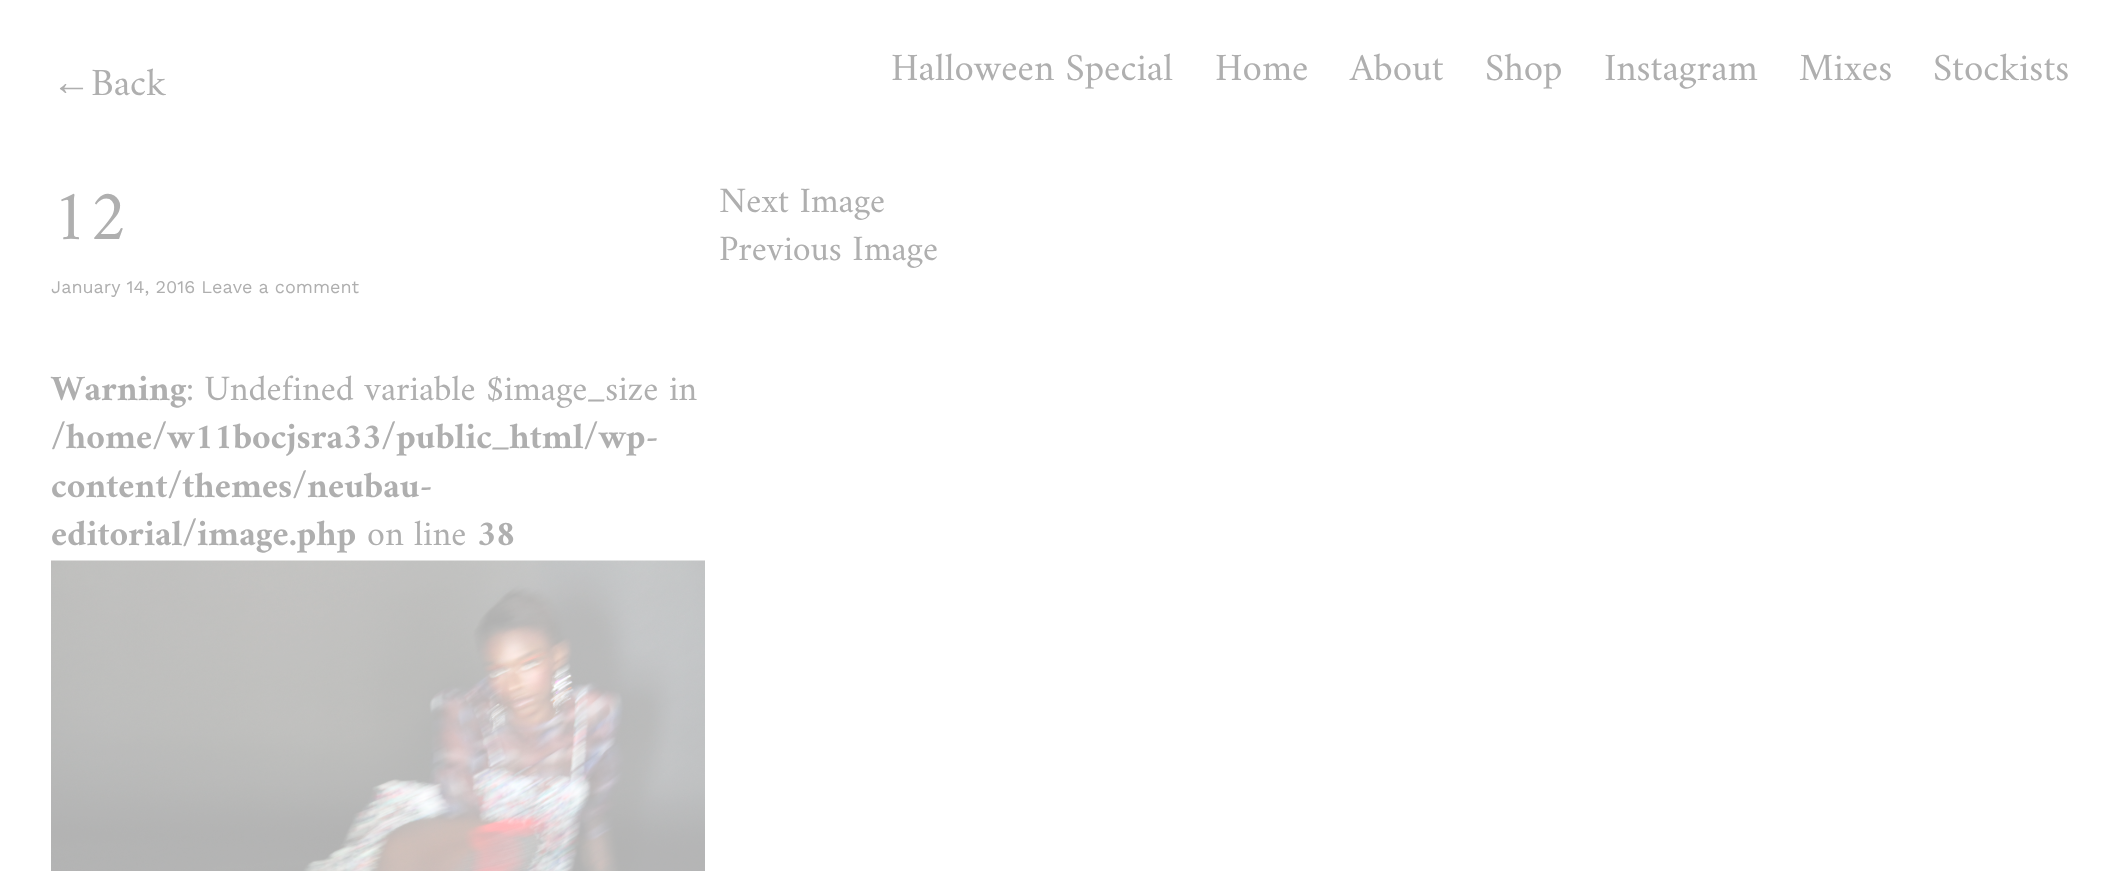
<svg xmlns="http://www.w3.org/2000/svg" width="2120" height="871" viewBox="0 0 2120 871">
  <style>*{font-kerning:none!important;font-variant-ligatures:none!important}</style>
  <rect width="100%" height="100%" fill="#fff"/>
  <image x="51" y="560" width="654" height="311" href="img/1.png"/>
  <text x="52" y="95" font-family="Liberation Serif" font-size="39" fill="#afafaf">←</text>
  <g font-family="Amiri" font-size="39" fill="#afafaf">
    <text x="91" y="95">Back</text>
    <text x="891" y="80">Halloween Special</text>
    <text x="1215" y="80">Home</text>
    <text x="1350" y="80">About</text>
    <text x="1485" y="80">Shop</text>
    <text x="1604" y="80">Instagram</text>
    <text x="1799" y="80">Mixes</text>
    <text x="1933" y="80">Stockists</text>
  </g>
  <text x="51" y="239" font-family="Amiri" font-size="72" fill="#afafaf">12</text>
  <text x="51" y="293" font-family="Work Sans" font-size="18" fill="#afafaf">January 14, 2016 Leave a comment</text>
  <text x="51" y="400" font-family="Amiri" font-size="36" font-weight="bold" fill="#afafaf">Warning</text>
  <text x="186" y="400" font-family="Amiri" font-size="36" fill="#afafaf">: Undefined variable $image_size in</text>
  <g font-family="Amiri" font-size="36" font-weight="bold" fill="#afafaf">
    <text x="51" y="448">/home/w11bocjsra33/public_html/wp-</text>
    <text x="51" y="497">content/themes/neubau-</text>
    <text x="51" y="545">editorial/image.php</text>
  </g>
  <text x="367" y="545" font-family="Amiri" font-size="36" fill="#afafaf">on line</text>
  <text x="477" y="545" font-family="Amiri" font-size="36" font-weight="bold" fill="#afafaf">38</text>
  <g font-family="Amiri" font-size="36" fill="#afafaf">
    <text x="719" y="212">Next Image</text>
    <text x="719" y="260">Previous Image</text>
  </g>
</svg>
